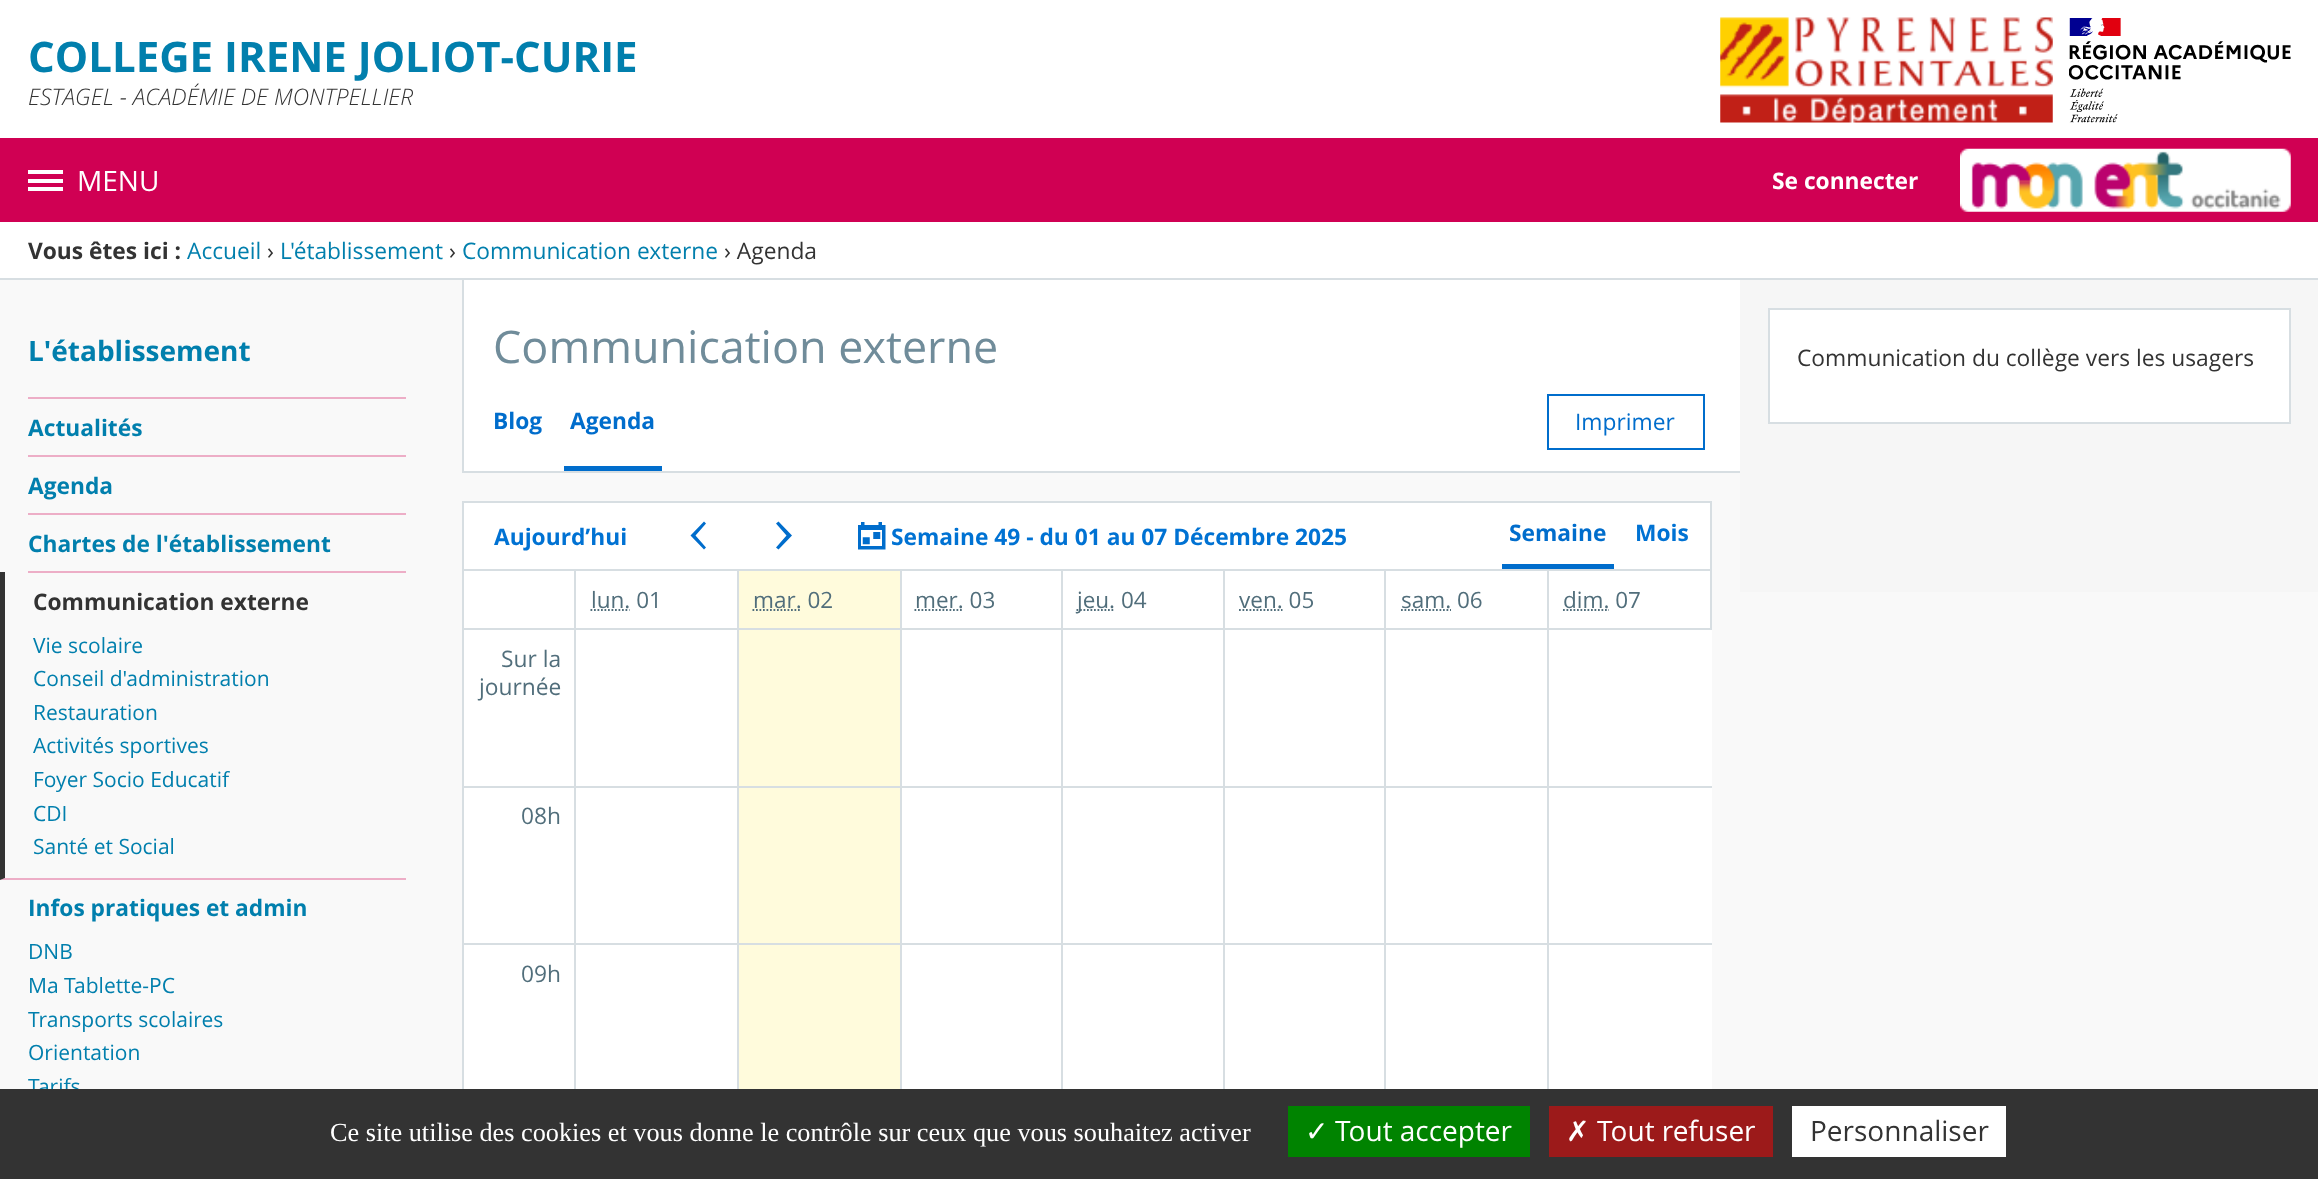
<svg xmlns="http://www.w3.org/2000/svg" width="2318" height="1179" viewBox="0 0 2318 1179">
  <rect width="100%" height="100%" fill="#fff"/>
  <image x="1720" y="17" width="333" height="106" href="img/1.png"/>
  <image x="2069" y="18" width="222" height="105" href="img/2.png"/>
  <path d="M0 138h2318v84H0z" fill="#d00053"/>
  <path d="M28 170h35v4H28z" fill="#fff"/>
  <path d="M28 179h35v4H28z" fill="#fff"/>
  <path d="M28 187h35v4H28z" fill="#fff"/>
  <image x="1960" y="148" width="331" height="64" href="img/3.png"/>
  <path d="M0 278h2318v2H0z" fill="#d7dee2"/>
  <path d="M0 280h2318v809H0z" fill="#f9f9f9"/>
  <path d="M28 397h378v2H28z" fill="#edaec7"/>
  <path d="M28 455h378v2H28z" fill="#edaec7"/>
  <path d="M28 513h378v2H28z" fill="#edaec7"/>
  <path d="M28 571h378v2H28z" fill="#edaec7"/>
  <path d="M406 880H0L5 878H406Z" fill="#edaec7"/>
  <path d="M0 880V572H5V878Z" fill="#333"/>
  <path d="M464 280h1276v191H464z" fill="#fff"/>
  <path d="M462 471h1278v2H462z" fill="#d7dee2"/>
  <path d="M462 280h2v193H462z" fill="#d7dee2"/>
  <path d="M564 466h98v5H564z" fill="#006dcc"/>
  <path d="M1548 395h156v54H1548z" fill="none" stroke="#006dcc" stroke-width="2"/>
  <path d="M464 503h1248v586H464z" fill="#fff"/>
  <path d="M463 502h1248v68H463z" fill="none" stroke="#d7dee2" stroke-width="2"/>
  <path d="M706 523.5L704 521.5L690.5 535.5L704 549.5L706 547.5L695.5 535.5Z" fill="#006dcc"/>
  <path d="M776 547.5L778.5 549.5L792 535.5L778.5 521.5L776 523.5L786.5 535.5Z" fill="#006dcc"/>
  <image x="858" y="522" width="28" height="28" href="img/4.png"/>
  <path d="M1502 564h112v5H1502z" fill="#006dcc"/>
  <path d="M462 571h2v518H462z" fill="#d7dee2"/>
  <path d="M739 571h161v518H739z" fill="#fffbdc"/>
  <path d="M1710 571h2v59H1710z" fill="#d7dee2"/>
  <path d="M462 786h1250v2H462z" fill="#d7dee2"/>
  <path d="M462 943h1250v2H462z" fill="#d7dee2"/>
  <path d="M1547 628h2v461H1547z" fill="#d7dee2"/>
  <path d="M1547 628h165v2H1547z" fill="#d7dee2"/>
  <path d="M1547 571h2v59H1547z" fill="#d7dee2"/>
  <path d="M1384 628h2v461H1384z" fill="#d7dee2"/>
  <path d="M1384 628h165v2H1384z" fill="#d7dee2"/>
  <path d="M1384 571h2v59H1384z" fill="#d7dee2"/>
  <path d="M1223 628h2v461H1223z" fill="#d7dee2"/>
  <path d="M1223 628h163v2H1223z" fill="#d7dee2"/>
  <path d="M1223 571h2v59H1223z" fill="#d7dee2"/>
  <path d="M1061 628h2v461H1061z" fill="#d7dee2"/>
  <path d="M1061 628h164v2H1061z" fill="#d7dee2"/>
  <path d="M1061 571h2v59H1061z" fill="#d7dee2"/>
  <path d="M900 628h2v461H900z" fill="#d7dee2"/>
  <path d="M900 628h162v2H900z" fill="#d7dee2"/>
  <path d="M900 571h2v59H900z" fill="#d7dee2"/>
  <path d="M737 628h2v461H737z" fill="#d7dee2"/>
  <path d="M737 628h164v2H737z" fill="#d7dee2"/>
  <path d="M737 571h2v59H737z" fill="#d7dee2"/>
  <path d="M574 628h2v461H574z" fill="#d7dee2"/>
  <path d="M574 628h165v2H574z" fill="#d7dee2"/>
  <path d="M574 571h2v59H574z" fill="#d7dee2"/>
  <path d="M590.5 610H629.5" fill="none" stroke="#516e7b" stroke-width="1.8" stroke-dasharray="1.75 1.75"/>
  <path d="M752.5 610H801" fill="none" stroke="#516e7b" stroke-width="1.8" stroke-dasharray="1.75 1.75"/>
  <path d="M914.5 610H963" fill="none" stroke="#516e7b" stroke-width="1.8" stroke-dasharray="1.75 1.75"/>
  <path d="M1076.5 610H1114.5" fill="none" stroke="#516e7b" stroke-width="1.8" stroke-dasharray="1.75 1.75"/>
  <path d="M1239 610H1282.5" fill="none" stroke="#516e7b" stroke-width="1.8" stroke-dasharray="1.75 1.75"/>
  <path d="M1401 610H1451" fill="none" stroke="#516e7b" stroke-width="1.8" stroke-dasharray="1.75 1.75"/>
  <path d="M1563 610H1609" fill="none" stroke="#516e7b" stroke-width="1.8" stroke-dasharray="1.75 1.75"/>
  <path d="M462 628h114v2H462z" fill="#d7dee2"/>
  <path d="M1740 280h578v312H1740z" fill="#f6f6f6"/>
  <path d="M1769 309h521v114H1769z" fill="#fff" stroke="#d7dee2" stroke-width="2"/>
  <text x="28" y="72" font-family="Open Sans" font-size="42" font-weight="bold" fill="#017fad">COLLEGE IRENE JOLIOT-CURIE</text>
  <text x="28" y="105" font-family="Open Sans" font-size="22.75" font-weight="300" font-style="italic" fill="#333">ESTAGEL - ACADÉMIE DE MONTPELLIER</text>
  <text x="77" y="191" font-family="Open Sans" font-size="28" fill="#fff">MENU</text>
  <text x="1772" y="189" font-family="Open Sans" font-size="22.75" font-weight="bold" fill="#fff">Se connecter</text>
  <text x="28" y="259" font-family="Open Sans" font-size="22.75" font-weight="bold" fill="#333">Vous êtes ici :</text>
  <text x="187" y="259" font-family="Open Sans" font-size="22.75" fill="#017fad">Accueil</text>
  <text x="267" y="259" font-family="Open Sans" font-size="22.75" fill="#333">›</text>
  <text x="280" y="259" font-family="Open Sans" font-size="22.75" fill="#017fad">L'établissement</text>
  <text x="449" y="259" font-family="Open Sans" font-size="22.75" fill="#333">›</text>
  <text x="462" y="259" font-family="Open Sans" font-size="22.75" fill="#017fad">Communication externe</text>
  <text x="724" y="259" font-family="Open Sans" font-size="22.75" fill="#333">› Agenda</text>
  <text x="28" y="361" font-family="Open Sans" font-size="28" font-weight="bold" fill="#017fad">L'établissement</text>
  <g font-family="Open Sans" font-size="22.75" font-weight="bold" fill="#017fad">
    <text x="28" y="436">Actualités</text>
    <text x="28" y="494">Agenda</text>
    <text x="28" y="552">Chartes de l'établissement</text>
  </g>
  <text x="33" y="610" font-family="Open Sans" font-size="22.75" font-weight="bold" fill="#333">Communication externe</text>
  <g font-family="Open Sans" font-size="21" fill="#017fad">
    <text x="33" y="653">Vie scolaire</text>
    <text x="33" y="686">Conseil d'administration</text>
    <text x="33" y="720">Restauration</text>
    <text x="33" y="753">Activités sportives</text>
    <text x="33" y="787">Foyer Socio Educatif</text>
    <text x="33" y="821">CDI</text>
    <text x="33" y="854">Santé et Social</text>
  </g>
  <text x="28" y="916" font-family="Open Sans" font-size="22.75" font-weight="bold" fill="#017fad">Infos pratiques et admin</text>
  <g font-family="Open Sans" font-size="21" fill="#017fad">
    <text x="28" y="959">DNB</text>
    <text x="28" y="993">Ma Tablette-PC</text>
    <text x="28" y="1027">Transports scolaires</text>
    <text x="28" y="1060">Orientation</text>
    <text x="28" y="1094">Tarifs</text>
  </g>
  <text x="493" y="363" font-family="Open Sans" font-size="44.9" fill="#708c9a">Communication externe</text>
  <g font-family="Open Sans" font-size="22.75" font-weight="bold" fill="#006dcc">
    <text x="493" y="429">Blog</text>
    <text x="570" y="429">Agenda</text>
  </g>
  <text x="1575" y="430" font-family="Open Sans" font-size="22.75" fill="#006dcc">Imprimer</text>
  <g font-family="Open Sans" font-size="22.75" font-weight="bold" fill="#0072d3">
    <text x="494" y="545">Aujourd’hui</text>
    <text x="891" y="545">Semaine 49 - du 01 au 07 Décembre 2025</text>
  </g>
  <text x="1509" y="541" font-family="Open Sans" font-size="22.75" font-weight="bold" fill="#006dcc">Semaine</text>
  <text x="1635" y="541" font-family="Open Sans" font-size="22.75" font-weight="bold" fill="#0072d3">Mois</text>
  <g font-family="Open Sans" font-size="22.5" fill="#516e7b">
    <text x="591" y="608">lun. 01</text>
    <text x="753" y="608">mar. 02</text>
    <text x="915" y="608">mer. 03</text>
    <text x="1077" y="608">jeu. 04</text>
    <text x="1239" y="608">ven. 05</text>
    <text x="1401" y="608">sam. 06</text>
    <text x="1563" y="608">dim. 07</text>
  </g>
  <g font-family="Open Sans" font-size="22.75" fill="#516e7b">
    <text x="501" y="667">Sur la</text>
    <text x="479" y="695">journée</text>
    <text x="521" y="824">08h</text>
    <text x="521" y="982">09h</text>
  </g>
  <text x="1797" y="366" font-family="Open Sans" font-size="22.75" fill="#333">Communication du collège vers les usagers</text>
  <path d="M0 1089h2318v90H0z" fill="#333"/>
  <text x="330" y="1141" font-family="Liberation Serif" font-size="26.25" fill="#fff">Ce site utilise des cookies et vous donne le contrôle sur ceux que vous souhaitez activer</text>
  <path d="M1288 1106h242v51H1288z" fill="#008300"/>
  <text x="1305" y="1141" font-family="DejaVu Sans" font-size="28" fill="#fff">✓</text>
  <text x="1335" y="1141" font-family="Open Sans" font-size="28" fill="#fff">Tout accepter</text>
  <path d="M1549 1106h224v51H1549z" fill="#9c1a1a"/>
  <text x="1566" y="1141" font-family="DejaVu Sans" font-size="28" fill="#fff">✗</text>
  <text x="1597" y="1141" font-family="Open Sans" font-size="28" fill="#fff">Tout refuser</text>
  <path d="M1792 1106h214v51H1792z" fill="#fff"/>
  <text x="1810" y="1141" font-family="Open Sans" font-size="28" fill="#333">Personnaliser</text>
</svg>
